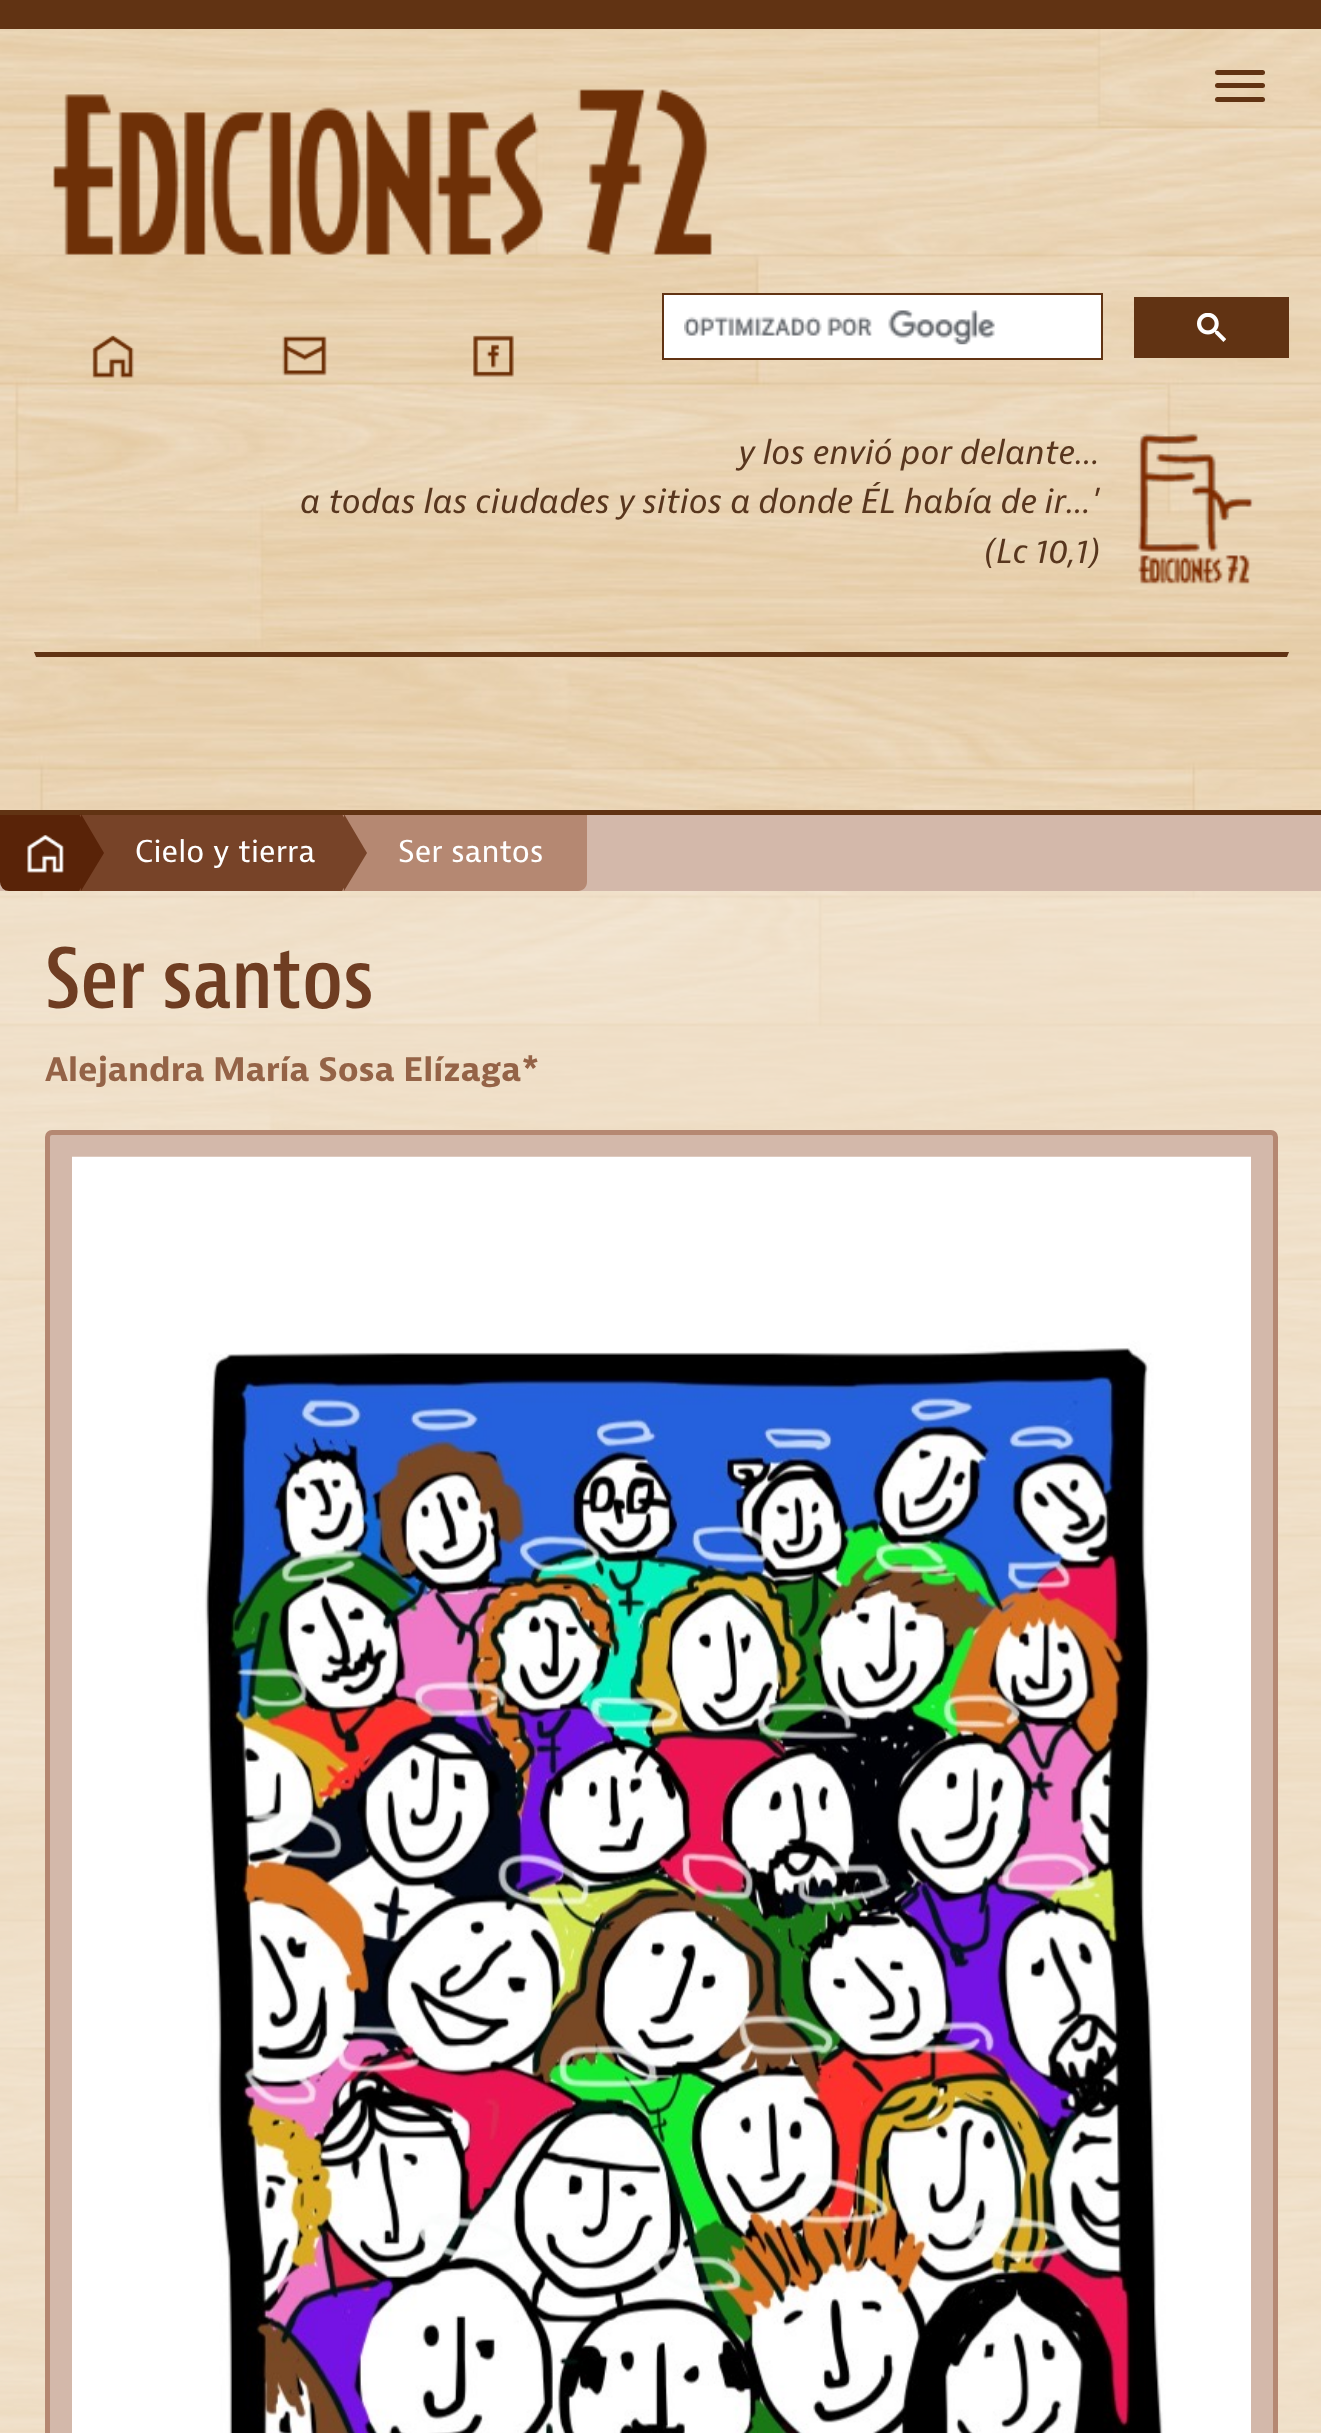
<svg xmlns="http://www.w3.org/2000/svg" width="1321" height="2433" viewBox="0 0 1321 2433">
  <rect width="100%" height="100%" fill="#fff"/>
  <image x="0" y="29" width="1321" height="2404" href="img/1.png"/>
  <path d="M0 0h1321v29H0z" fill="#613313"/>
  <image x="53" y="89" width="659" height="166" href="img/2.png"/>
  <rect x="1215" y="70" width="50" height="5" rx="2.5" fill="#613313"/>
  <rect x="1215" y="83" width="50" height="5" rx="2.5" fill="#613313"/>
  <rect x="1215" y="97" width="50" height="5" rx="2.5" fill="#613313"/>
  <image x="92" y="335" width="42" height="43" href="img/3.png"/>
  <image x="282" y="335" width="45" height="41" href="img/4.png"/>
  <image x="473" y="335" width="41" height="42" href="img/5.png"/>
  <path d="M663 294h439v65H663z" fill="#fff" stroke="#613313" stroke-width="2"/>
  <image x="684" y="310" width="311" height="35" href="img/6.png"/>
  <path d="M1134 297h155v61H1134z" fill="#613313"/>
  <image x="1197" y="313" width="29" height="29" href="img/7.png"/>
  <image x="1138" y="433" width="116" height="151" href="img/8.png"/>
  <path d="M34 652H1289L1287 657H36Z" fill="#613313"/>
  <path d="M0 891h1321v1542H0z" fill="#f5ebdd80"/>
  <path d="M0 810h1321v5H0z" fill="#613313"/>
  <path d="M0 815h1321v76H0z" fill="#d3b8aa"/>
  <path d="M1 816H80V890H9C4.5 890 1 886.5 1 882Z" fill="#592308" stroke="#592308" stroke-width="2"/>
  <path d="M79 815h263v76H79z" fill="#774328"/>
  <path d="M81 891V814L104 853Z" fill="#592308"/>
  <path d="M79 891V814L101 853Z" fill="#592308"/>
  <image x="27" y="835" width="37" height="38" href="img/9.png"/>
  <path d="M342 815H587V882C587 887 583 891 578 891H342Z" fill="#b58872"/>
  <path d="M344 891V814L367 853Z" fill="#774328"/>
  <path d="M342 891V814L364 853Z" fill="#774328"/>
  <rect x="47.5" y="1132.5" width="1228" height="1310" rx="4.5" fill="#d3b8aa" stroke="#b58872" stroke-width="5"/>
  <image x="72" y="1156" width="1179" height="1277" href="img/10.png"/>
  <g font-family="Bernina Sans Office" font-size="34.65" font-style="italic" fill="#58361e">
    <text x="738" y="464">y los envió por delante...</text>
    <text x="300" y="513">a todas las ciudades y sitios a donde ÉL había de ir...'</text>
    <text x="984" y="563">(Lc 10,1)</text>
  </g>
  <g font-family="Bernina Sans Office" font-size="31.5" fill="#fff">
    <text x="135" y="862">Cielo y tierra</text>
    <text x="398" y="862">Ser santos</text>
  </g>
  <text x="45" y="1008" font-family="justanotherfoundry" font-size="81" font-weight="bold" fill="#6f3d22">Ser santos</text>
  <text x="45" y="1081" font-family="Bernina Sans Office" font-size="34" font-weight="bold" fill="#946347">Alejandra María Sosa Elízaga*</text>
</svg>
